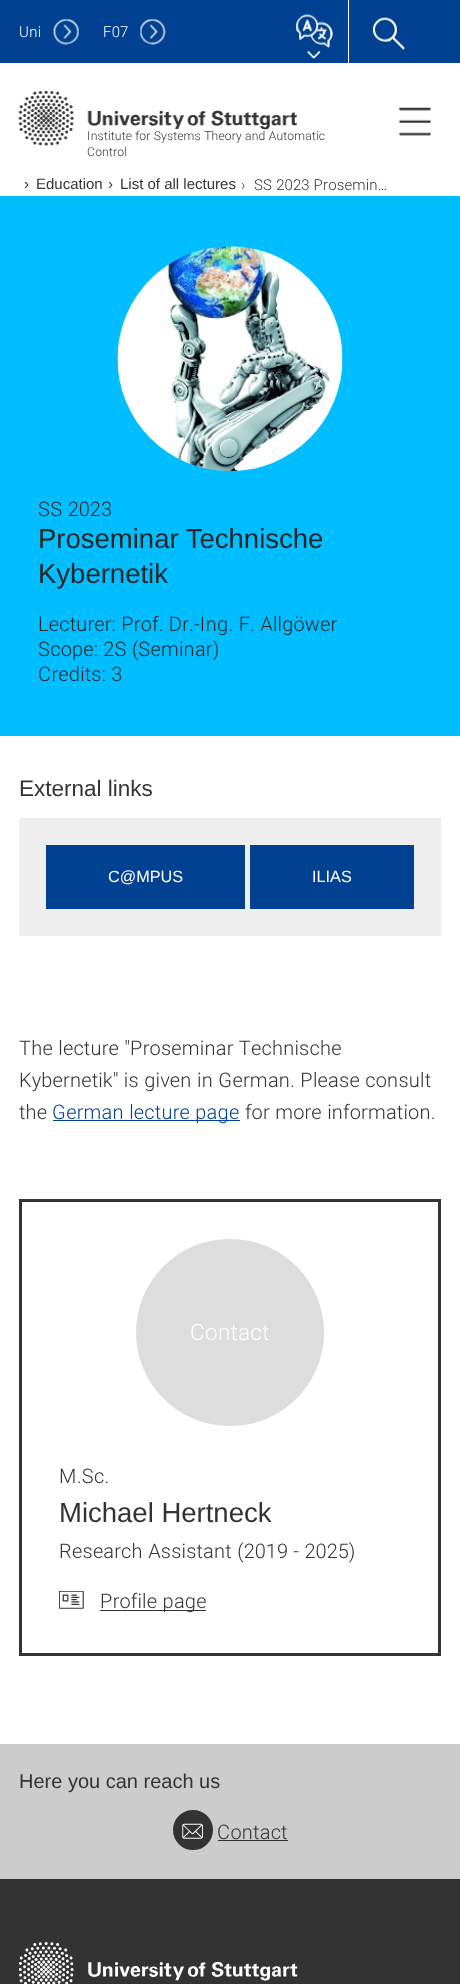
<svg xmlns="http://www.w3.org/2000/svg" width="460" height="1984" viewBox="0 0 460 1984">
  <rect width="100%" height="100%" fill="#fff"/>
  <path d="M0 0h460v63H0z" fill="#004191"/>
  <image x="53" y="19" width="26" height="26" href="img/1.png"/>
  <image x="140" y="19" width="26" height="26" href="img/2.png"/>
  <image x="295" y="13" width="38" height="35" href="img/3.png"/>
  <image x="307" y="51" width="20" height="8" href="img/4.png"/>
  <path d="M348 0h1v63H348z" fill="#fff"/>
  <image x="373" y="17" width="32" height="33" href="img/5.png"/>
  <image x="399" y="107" width="32" height="29" href="img/6.png"/>
  <image x="18" y="90" width="279" height="56" href="img/7.png"/>
  <path d="M0 196h460v540H0z" fill="#00beff"/>
  <image x="117" y="246" width="226" height="226" href="img/8.png"/>
  <path d="M19 818h422v118H19z" fill="#eee"/>
  <path d="M46 845h199v64H46z" fill="#004191"/>
  <path d="M250 845h164v64H250z" fill="#004191"/>
  <path d="M53 1120h187v1H53z" fill="#004191"/>
  <path d="M20.5 1200.5h419v454H20.5z" fill="none" stroke="#333" stroke-width="3"/>
  <rect x="136" y="1239" width="188" height="187" rx="93.5" fill="#ddd"/>
  <image x="59" y="1591" width="25" height="18" href="img/9.png"/>
  <path d="M100 1610h106v1H100z" fill="#333"/>
  <path d="M0 1879h460v105H0z" fill="#333"/>
  <path d="M0 1744h460v135H0z" fill="#ccc"/>
  <circle cx="193" cy="1830" r="17" fill="#333" stroke="#333" stroke-width="6"/>
  <image x="182" y="1823" width="21" height="16" href="img/10.png"/>
  <path d="M218 1840h70v1H218z" fill="#333"/>
  <image x="19" y="1942" width="279" height="42" href="img/11.png"/>
  <g font-family="Roboto" font-size="15" font-weight="300" fill="#fff">
    <text x="19" y="37">Uni</text>
    <text x="103" y="37">F07</text>
  </g>
  <g font-family="Roboto" font-size="12.2" font-weight="300" fill="#333">
    <text x="87" y="140">Institute for Systems Theory and Automatic</text>
    <text x="87" y="156">Control</text>
  </g>
  <g font-family="Liberation Sans" font-size="15" fill="#333">
    <text x="24" y="189">›</text>
    <text x="36" y="189">Education</text>
    <text x="108" y="189">›</text>
    <text x="120" y="189">List of all lectures</text>
  </g>
  <g font-family="Roboto" font-size="15" font-weight="300" fill="#333">
    <text x="241" y="190">›</text>
    <text x="254" y="190">SS 2023 Prosemin…</text>
  </g>
  <text x="38" y="516" font-family="Roboto" font-size="20" font-weight="300" fill="#262626">SS 2023</text>
  <g font-family="Liberation Sans" font-size="27.5" fill="#262626">
    <text x="38" y="548">Proseminar Technische</text>
    <text x="38" y="583">Kybernetik</text>
  </g>
  <g font-family="Roboto" font-size="20" font-weight="300" fill="#262626">
    <text x="38" y="631">Lecturer: Prof. Dr.-Ing. F. Allgöwer</text>
    <text x="38" y="656">Scope: 2S (Seminar)</text>
    <text x="38" y="681">Credits: 3</text>
  </g>
  <text x="19" y="796" font-family="Liberation Sans" font-size="22.5" fill="#333">External links</text>
  <g font-family="Liberation Sans" font-size="16.25" fill="#fff">
    <text x="108" y="882">C@MPUS</text>
    <text x="312" y="882">ILIAS</text>
  </g>
  <g font-family="Roboto" font-size="20" font-weight="300" fill="#333">
    <text x="19" y="1055">The lecture "Proseminar Technische</text>
    <text x="19" y="1087">Kybernetik" is given in German. Please consult</text>
    <text x="19" y="1119">the</text>
  </g>
  <text x="52" y="1119" font-family="Roboto" font-size="20" font-weight="300" fill="#004191">German lecture page</text>
  <text x="245" y="1119" font-family="Roboto" font-size="20" font-weight="300" fill="#333">for more information.</text>
  <text x="190" y="1340" font-family="Roboto" font-size="22.5" font-weight="300" fill="#fff">Contact</text>
  <text x="59" y="1483" font-family="Roboto" font-size="20" font-weight="300" fill="#333">M.Sc.</text>
  <text x="59" y="1522" font-family="Liberation Sans" font-size="27.5" fill="#333">Michael Hertneck</text>
  <g font-family="Roboto" font-size="20" font-weight="300" fill="#333">
    <text x="59" y="1558">Research Assistant (2019 - 2025)</text>
    <text x="100" y="1608">Profile page</text>
  </g>
  <text x="19" y="1788" font-family="Liberation Sans" font-size="20" fill="#333">Here you can reach us</text>
  <text x="217" y="1839" font-family="Roboto" font-size="20" font-weight="300" fill="#333">Contact</text>
</svg>
